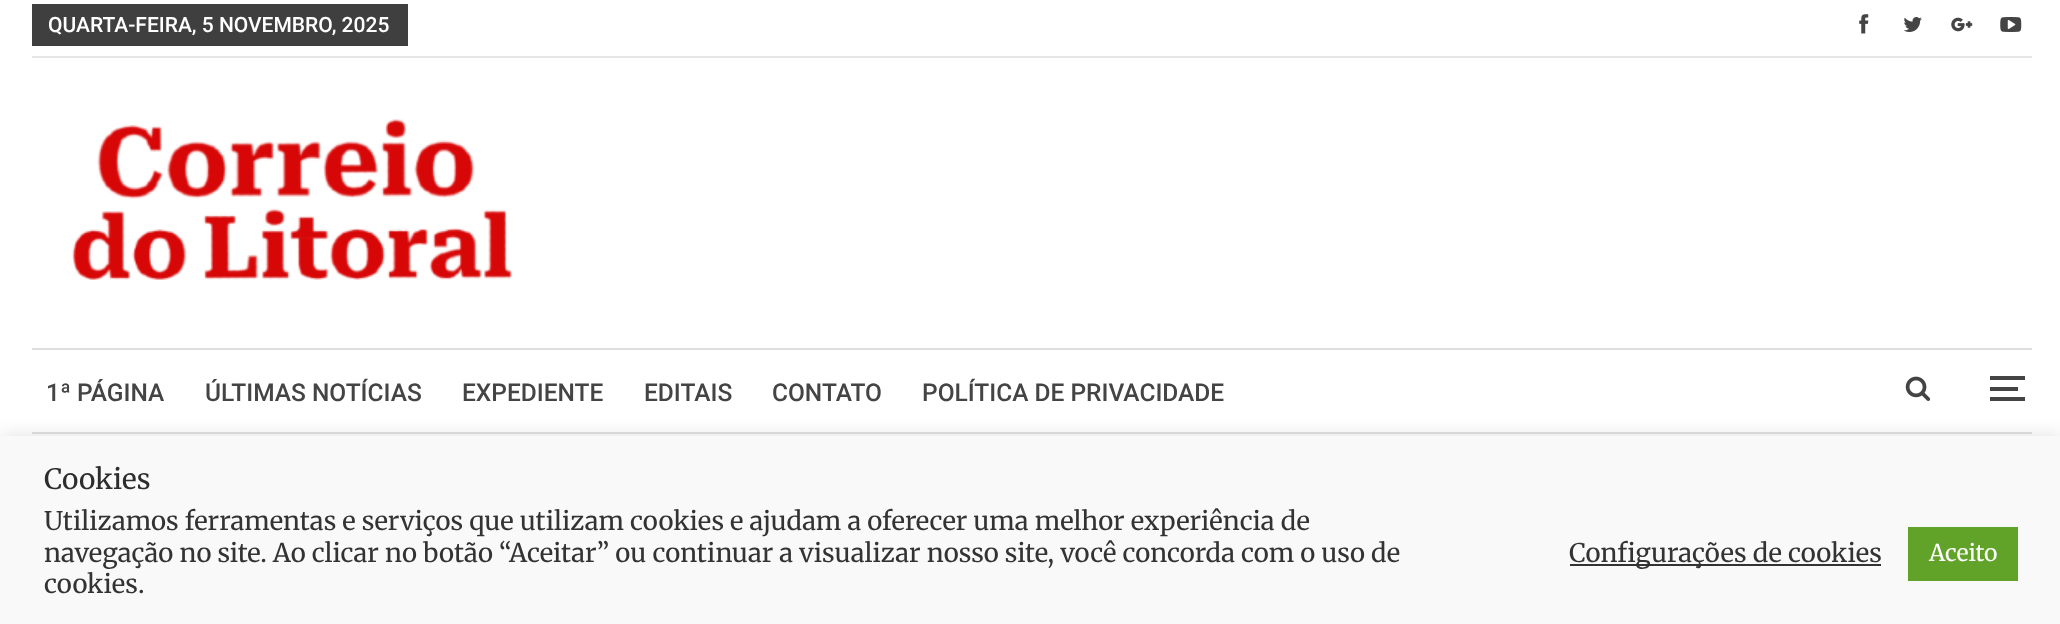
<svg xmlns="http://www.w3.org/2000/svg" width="2060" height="624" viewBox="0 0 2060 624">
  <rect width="100%" height="100%" fill="#fff"/>
  <path d="M32 56h2000v2H32z" fill="#e6e6e6"/>
  <path d="M32 4h376v42H32z" fill="#3f3f3f"/>
  <image x="1859" y="14" width="10" height="20" href="img/1.png"/>
  <image x="1903" y="17" width="19" height="15" href="img/2.png"/>
  <image x="1951" y="17" width="22" height="15" href="img/3.png"/>
  <image x="2000" y="17" width="22" height="15" href="img/4.png"/>
  <image x="72" y="119" width="441" height="161" href="img/5.png"/>
  <path d="M32 348h2000v2H32z" fill="#dedede"/>
  <path d="M32 432h2000v2H32z" fill="#dedede"/>
  <image x="1905" y="376" width="26" height="25" href="img/6.png"/>
  <path d="M1990 387h28v4H1990z" fill="#444"/>
  <path d="M1990 376h35v4H1990z" fill="#444"/>
  <path d="M1990 397h35v4H1990z" fill="#444"/>
  <path d="M0 434h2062v189H0z" fill="#acabab4d" filter="blur(9px)"/>
  <path d="M0 436h2060v188H0z" fill="#f9f9f9"/>
  <path d="M1570 564h311v2H1570z" fill="#333"/>
  <path d="M1908 527h110v54H1908z" fill="#61a229"/>
  <text x="48" y="32" font-family="Roboto" font-size="21" font-weight="500" fill="#fff">QUARTA-FEIRA, 5 NOVEMBRO, 2025</text>
  <g font-family="Roboto" font-size="24.5" font-weight="500" fill="#444">
    <text x="46" y="401">1ª PÁGINA</text>
    <text x="205" y="401">ÚLTIMAS NOTÍCIAS</text>
    <text x="462" y="401">EXPEDIENTE</text>
    <text x="644" y="401">EDITAIS</text>
    <text x="772" y="401">CONTATO</text>
    <text x="922" y="401">POLÍTICA DE PRIVACIDADE</text>
  </g>
  <text x="44" y="489" font-family="Merriweather" font-size="28" font-weight="300" fill="#2d2d2d">Cookies</text>
  <g font-family="Merriweather" font-size="25.67" font-weight="300" fill="#333">
    <text x="44" y="530">Utilizamos ferramentas e serviços que utilizam cookies e ajudam a oferecer uma melhor experiência de</text>
    <text x="44" y="562">navegação no site. Ao clicar no botão “Aceitar” ou continuar a visualizar nosso site, você concorda com o uso de</text>
    <text x="44" y="593">cookies.</text>
    <text x="1569" y="562">Configurações de cookies</text>
  </g>
  <text x="1929" y="561" font-family="Merriweather" font-size="23" font-weight="300" fill="#fff">Aceito</text>
</svg>
